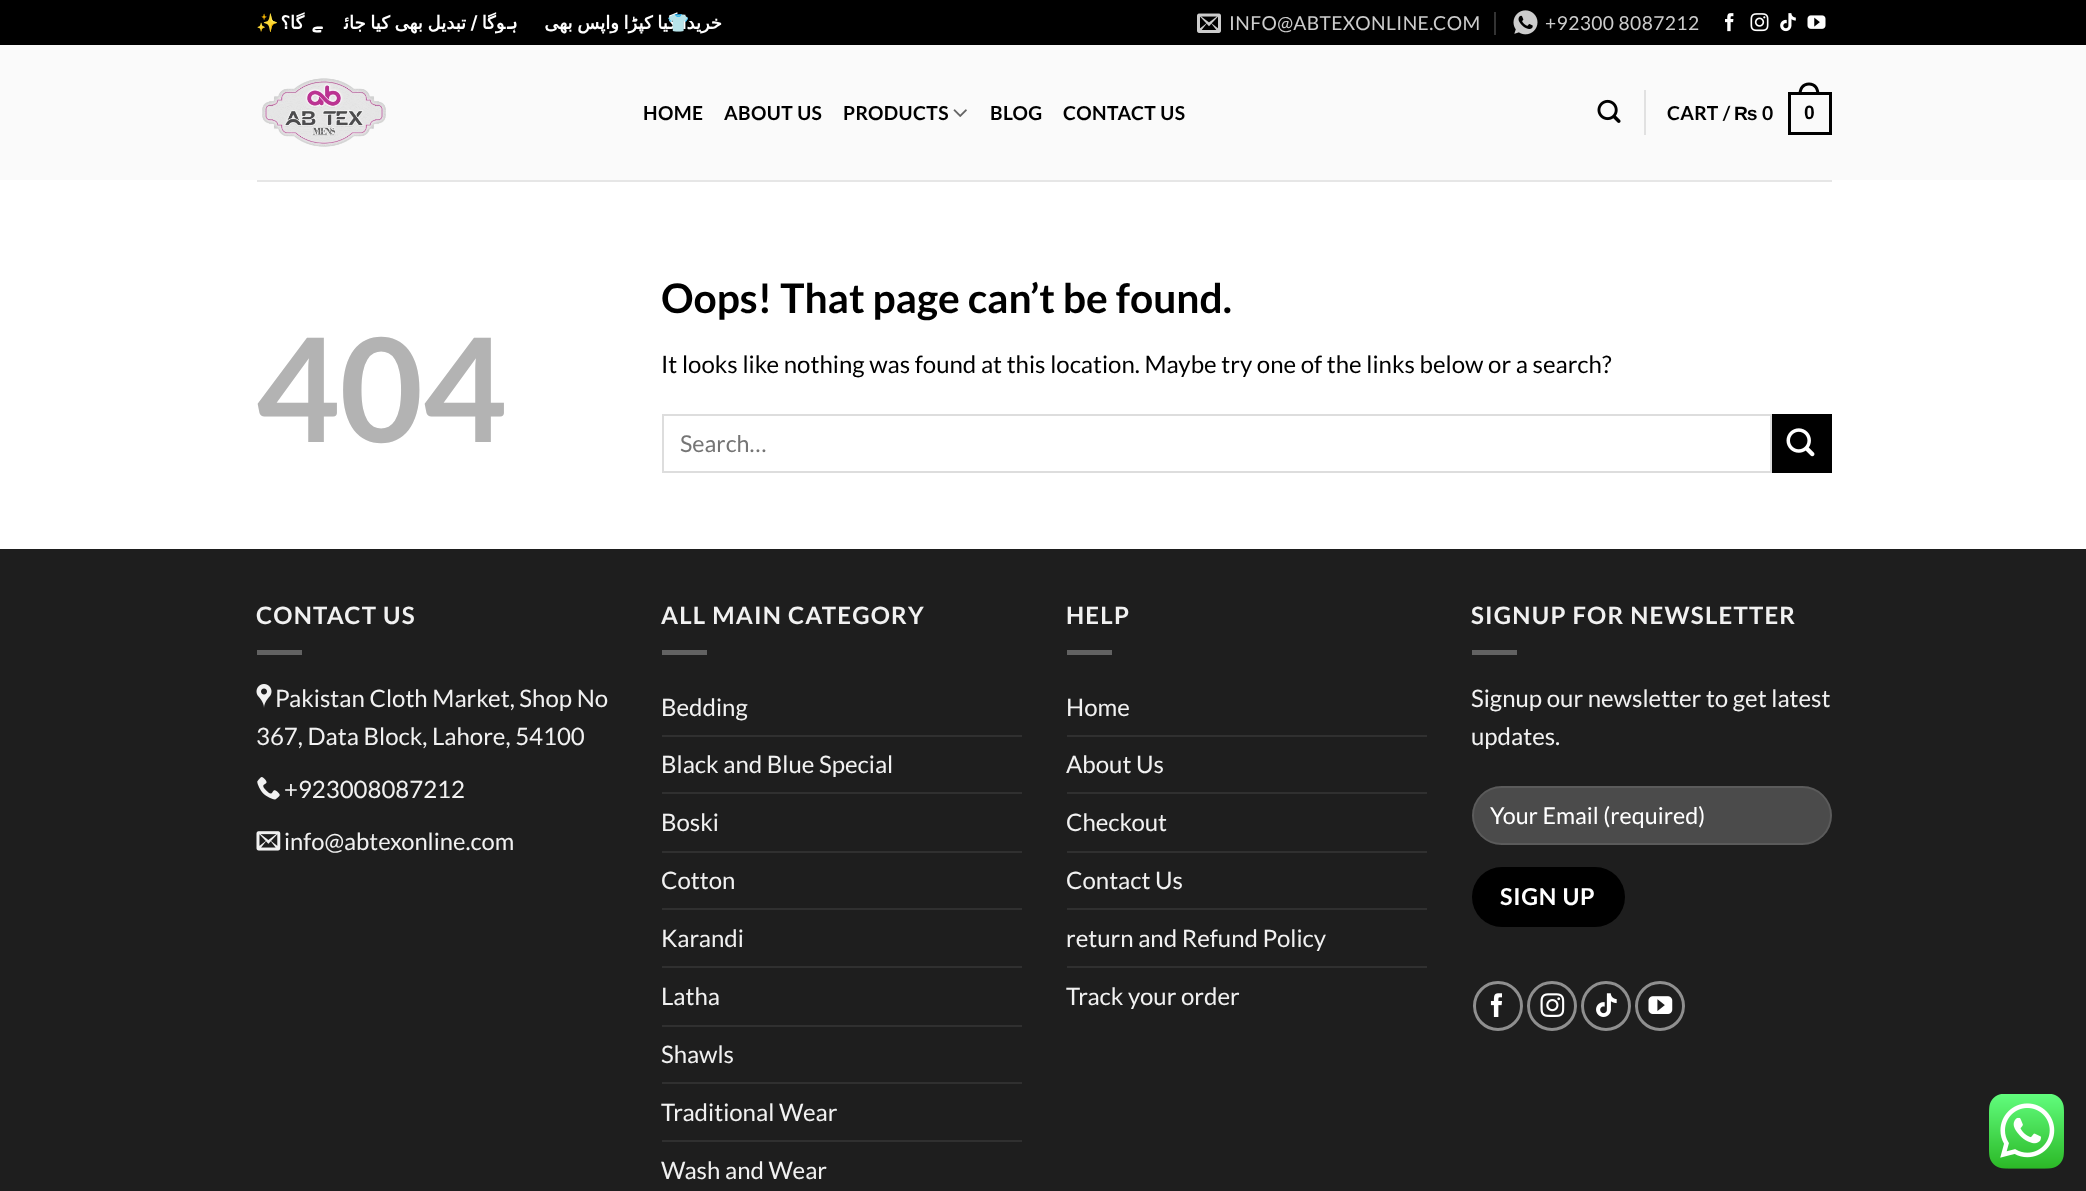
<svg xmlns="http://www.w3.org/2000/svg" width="2086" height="1191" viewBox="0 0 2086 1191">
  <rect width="100%" height="100%" fill="#fff"/>
  <path d="M0 0h2086v45H0z" fill="#000"/>
  <image x="1197" y="13" width="24" height="20" href="img/1.png"/>
  <path d="M1494 12h2v23H1494z" fill="#333"/>
  <image x="1513" y="10" width="25" height="25" href="img/2.png"/>
  <image x="1725" y="13" width="9" height="19" href="img/3.png"/>
  <image x="1750" y="13" width="19" height="19" href="img/4.png"/>
  <image x="1780" y="13" width="16" height="19" href="img/5.png"/>
  <image x="1807" y="15" width="19" height="14" href="img/6.png"/>
  <path d="M0 45h2086v135H0z" fill="#fafafa"/>
  <image x="262" y="78" width="124" height="69" href="img/7.png"/>
  <image x="953" y="109" width="14" height="8" href="img/8.png"/>
  <image x="1597" y="99" width="24" height="24" href="img/9.png"/>
  <path d="M1644 90h2v45H1644z" fill="#e1e1e1"/>
  <path d="M1789.5 93.5h41v40H1789.5z" fill="none" stroke="#000" stroke-width="3"/>
  <path d="M1809 82.5C1816 82.5 1819.5 88 1819.5 94.5H1798.5C1798.5 88 1802 82.5 1809 82.5ZM1809 85.5C1814.5 85.5 1816.5 90 1816.5 94.5H1801.5C1801.5 90 1803.5 85.5 1809 85.5Z" fill="#000" fill-rule="evenodd"/>
  <path d="M257 180h1575v2H257z" fill="#e6e6e6"/>
  <path d="M663 415h1108v57H663z" fill="none" stroke="#ddd" stroke-width="2"/>
  <path d="M1772 414h60v59H1772z" fill="#000"/>
  <image x="1786" y="428" width="29" height="29" href="img/10.png"/>
  <path d="M0 549h2086v642H0z" fill="#1e1e1e"/>
  <path d="M257 650h45v5H257z" fill="#626262"/>
  <image x="256" y="684" width="16" height="24" href="img/11.png"/>
  <image x="257" y="777" width="23" height="23" href="img/12.png"/>
  <image x="256" y="831" width="25" height="20" href="img/13.png"/>
  <path d="M662 650h45v5H662z" fill="#626262"/>
  <path d="M662 735h360v2H662z" fill="#303030"/>
  <path d="M662 792h360v2H662z" fill="#303030"/>
  <path d="M662 851h360v2H662z" fill="#303030"/>
  <path d="M662 908h360v2H662z" fill="#303030"/>
  <path d="M662 966h360v2H662z" fill="#303030"/>
  <path d="M662 1025h360v2H662z" fill="#303030"/>
  <path d="M662 1082h360v2H662z" fill="#303030"/>
  <path d="M662 1140h360v2H662z" fill="#303030"/>
  <path d="M1067 650h45v5H1067z" fill="#626262"/>
  <path d="M1067 735h360v2H1067z" fill="#303030"/>
  <path d="M1067 792h360v2H1067z" fill="#303030"/>
  <path d="M1067 851h360v2H1067z" fill="#303030"/>
  <path d="M1067 908h360v2H1067z" fill="#303030"/>
  <path d="M1067 966h360v2H1067z" fill="#303030"/>
  <path d="M1472 650h45v5H1472z" fill="#626262"/>
  <rect x="1472" y="786" width="360" height="59" rx="29.5" fill="#4b4b4b"/>
  <rect x="1473" y="787" width="358" height="57" rx="28.5" fill="none" stroke="#ffffff17" stroke-width="2"/>
  <rect x="1472" y="867" width="153" height="60" rx="30" fill="#000"/>
  <circle cx="1498" cy="1006" r="23.5" fill="none" stroke="#8f8f8f" stroke-width="3"/>
  <image x="1490" y="993" width="12" height="24" href="img/14.png"/>
  <circle cx="1552" cy="1006" r="23.5" fill="none" stroke="#8f8f8f" stroke-width="3"/>
  <image x="1540" y="993" width="25" height="24" href="img/15.png"/>
  <circle cx="1606" cy="1006" r="23.5" fill="none" stroke="#8f8f8f" stroke-width="3"/>
  <image x="1596" y="993" width="21" height="24" href="img/16.png"/>
  <circle cx="1660" cy="1006" r="23.5" fill="none" stroke="#8f8f8f" stroke-width="3"/>
  <image x="1648" y="996" width="25" height="18" href="img/17.png"/>
  <image x="1989" y="1094" width="75" height="75" href="img/18.png"/>
  <text x="256" y="29" font-family="Noto Color Emoji" font-size="18" font-weight="bold" letter-spacing="0.9" fill="#fff">✨</text>
  <g font-family="DejaVu Sans" font-size="18" font-weight="bold" letter-spacing="0.9" direction="rtl" fill="#fff">
    <text x="304" y="29">گا؟</text>
    <text x="505" y="29" word-spacing="-1">‍وگا / تبدیل بھی کیا جائ‍</text>
    <text x="722" y="29" word-spacing="-1">خریدا گیا کپڑا واپس بھی</text>
  </g>
  <g font-family="Cascadia Code" font-size="18" font-weight="bold" letter-spacing="0.9" direction="rtl" fill="#fff">
    <text x="322" y="29">‍ے</text>
    <text x="518" y="29">ہ‍</text>
  </g>
  <text x="667" y="29" font-family="Noto Color Emoji" font-size="18" font-weight="bold" letter-spacing="0.9" fill="#fff">👕</text>
  <g font-family="Lato" font-size="19.25" letter-spacing="0.4" fill="#ccc">
    <text x="1229" y="30">INFO@ABTEXONLINE.COM</text>
    <text x="1545" y="30">+92300 8087212</text>
  </g>
  <g font-family="Lato" font-size="19.25" font-weight="bold" letter-spacing="0.4" fill="#000">
    <text x="643" y="120">HOME</text>
    <text x="724" y="120">ABOUT US</text>
    <text x="843" y="120">PRODUCTS</text>
    <text x="990" y="120">BLOG</text>
    <text x="1063" y="120">CONTACT US</text>
    <text x="1667" y="120">CART /</text>
  </g>
  <text x="1734" y="120" font-family="Liberation Sans" font-size="19.25" font-weight="bold" letter-spacing="0.4" fill="#000">₨</text>
  <text x="1762" y="120" font-family="Lato" font-size="19.25" font-weight="bold" letter-spacing="0.4" fill="#000">0</text>
  <text x="1804" y="119" font-family="Liberation Sans" font-size="19.25" font-weight="bold" letter-spacing="0.4" fill="#000">0</text>
  <text x="256" y="442" font-family="Lato" font-size="144" font-weight="bold" fill="#b3b3b3">404</text>
  <text x="661" y="313" font-family="Lato" font-size="40.75" font-weight="bold" fill="#000">Oops! That page can’t be found.</text>
  <text x="661" y="373" font-family="Lato" font-size="24" fill="#000">It looks like nothing was found at this location. Maybe try one of the links below or a search?</text>
  <text x="680" y="452" font-family="Lato" font-size="23.25" fill="#757575">Search…</text>
  <text x="256" y="624" font-family="Lato" font-size="24" font-weight="bold" letter-spacing="1.2" fill="#f1f1f1">CONTACT US</text>
  <g font-family="Lato" font-size="24" fill="#f1f1f1">
    <text x="275" y="707">Pakistan Cloth Market, Shop No</text>
    <text x="256" y="745">367, Data Block, Lahore, 54100</text>
    <text x="284" y="798">+923008087212</text>
  </g>
  <text x="284" y="850" font-family="Lato" font-size="23.75" fill="#f1f1f1">info@abtexonline.com</text>
  <text x="661" y="624" font-family="Lato" font-size="24" font-weight="bold" letter-spacing="1.2" fill="#f1f1f1">ALL MAIN CATEGORY</text>
  <g font-family="Lato" font-size="24" fill="#f1f1f1">
    <text x="661" y="716">Bedding</text>
    <text x="661" y="773">Black and Blue Special</text>
    <text x="661" y="831">Boski</text>
    <text x="661" y="889">Cotton</text>
    <text x="661" y="947">Karandi</text>
    <text x="661" y="1005">Latha</text>
    <text x="661" y="1063">Shawls</text>
    <text x="661" y="1121">Traditional Wear</text>
    <text x="661" y="1179">Wash and Wear</text>
  </g>
  <text x="1066" y="624" font-family="Lato" font-size="24" font-weight="bold" letter-spacing="1.2" fill="#f1f1f1">HELP</text>
  <g font-family="Lato" font-size="24" fill="#f1f1f1">
    <text x="1066" y="716">Home</text>
    <text x="1066" y="773">About Us</text>
    <text x="1066" y="831">Checkout</text>
    <text x="1066" y="889">Contact Us</text>
    <text x="1066" y="947">return and Refund Policy</text>
    <text x="1066" y="1005">Track your order</text>
  </g>
  <text x="1471" y="624" font-family="Lato" font-size="24" font-weight="bold" letter-spacing="1.2" fill="#f1f1f1">SIGNUP FOR NEWSLETTER</text>
  <g font-family="Lato" font-size="24" fill="#f1f1f1">
    <text x="1471" y="707">Signup our newsletter to get latest</text>
    <text x="1471" y="745">updates.</text>
  </g>
  <text x="1490" y="824" font-family="Lato" font-size="23.25" fill="#fff">Your Email (required)</text>
  <text x="1500" y="905" font-family="Lato" font-size="23.25" font-weight="bold" letter-spacing="0.75" fill="#fff">SIGN UP</text>
</svg>
